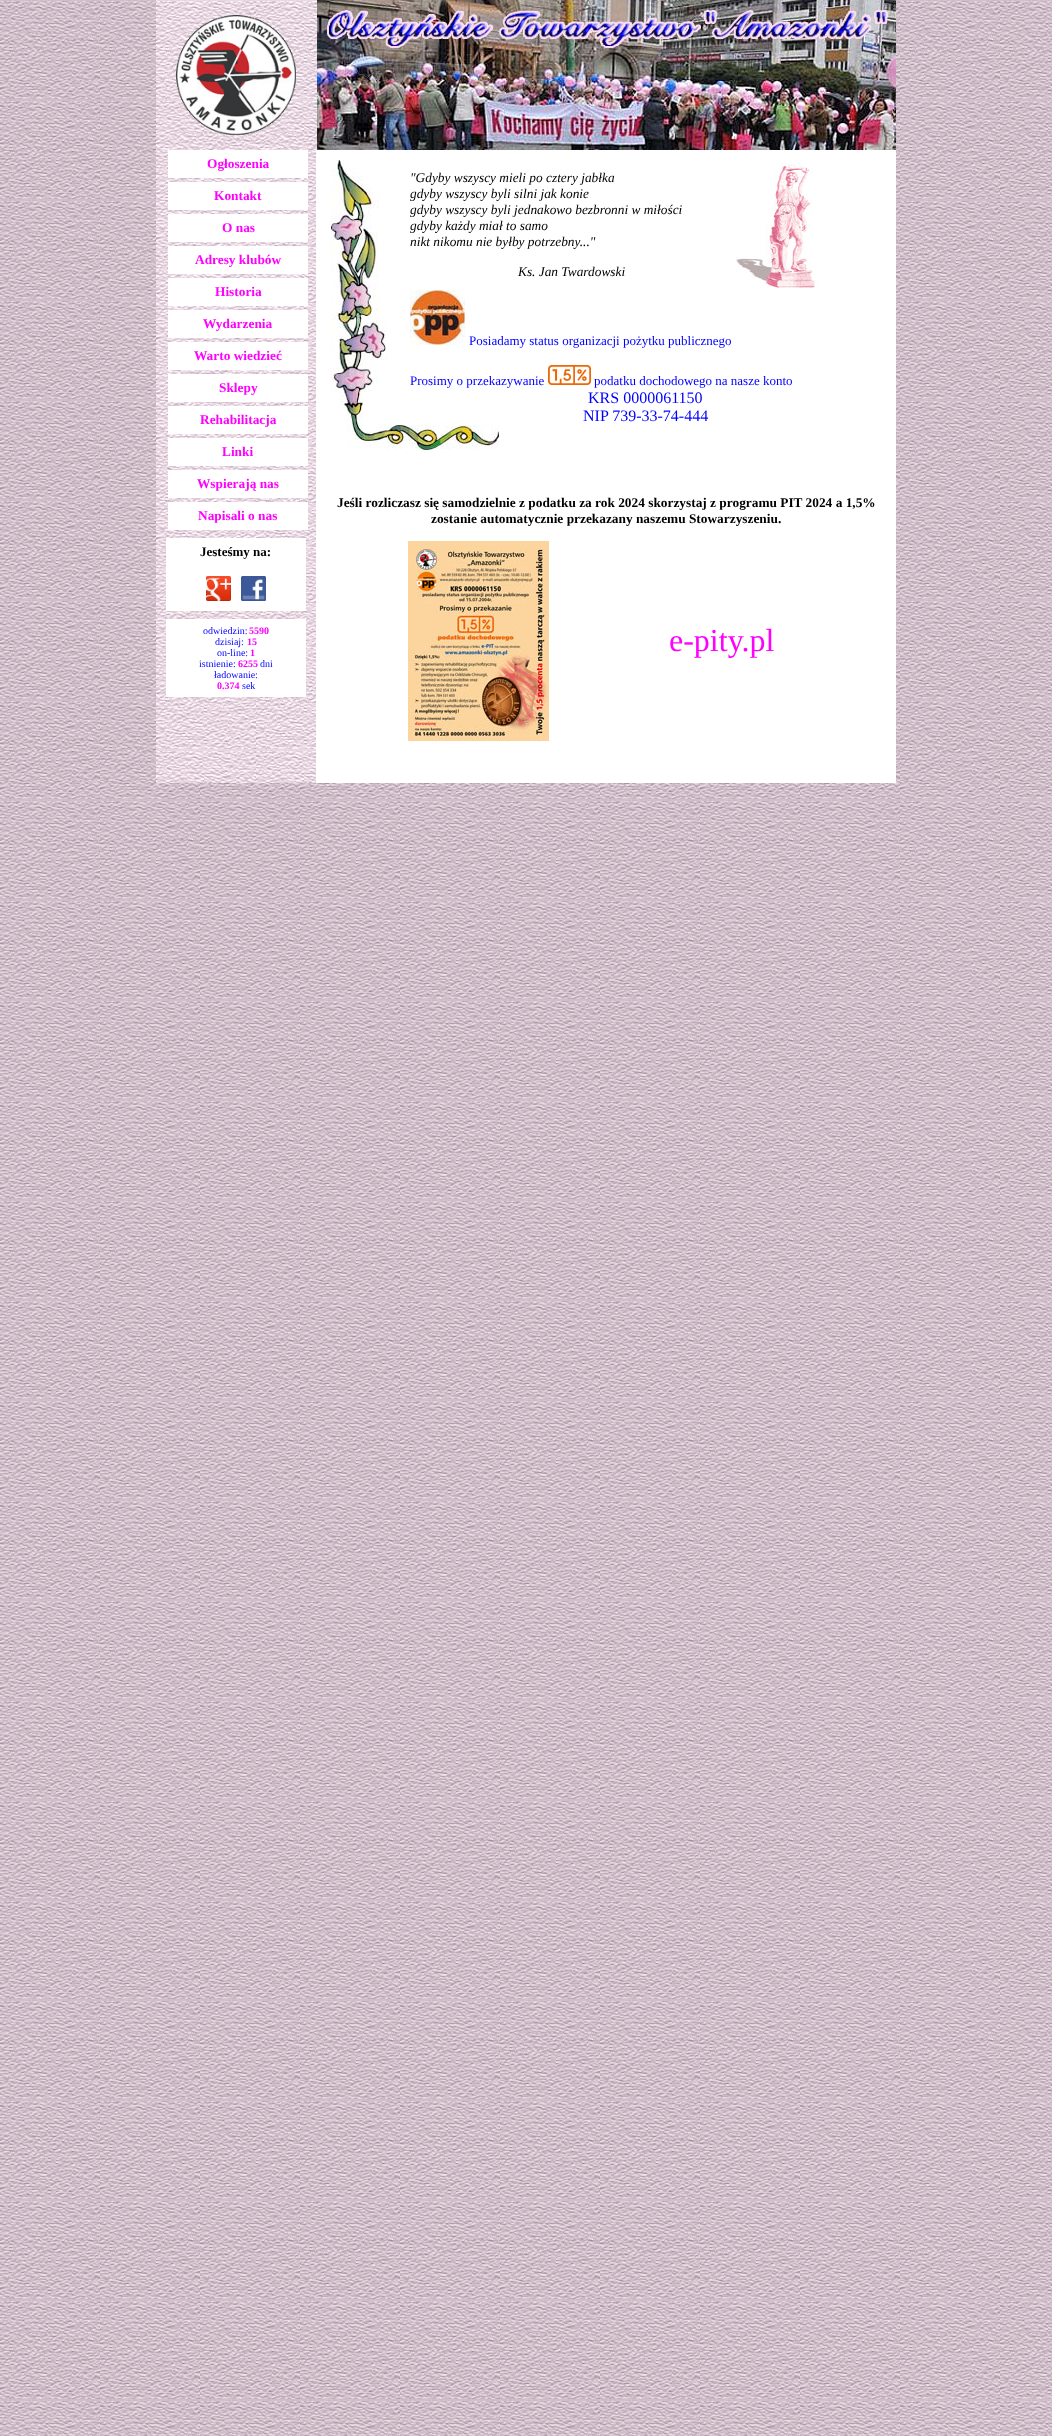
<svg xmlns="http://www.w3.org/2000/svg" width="1052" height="2436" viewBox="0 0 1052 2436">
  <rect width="100%" height="100%" fill="#fff"/>
  <image x="0" y="0" width="1052" height="2436" href="img/1.png"/>
  <image x="156" y="0" width="161" height="150" href="img/2.png"/>
  <image x="176" y="15" width="120" height="120" href="img/3.png"/>
  <image x="317" y="0" width="579" height="150" href="img/4.png"/>
  <image x="156" y="150" width="160" height="633" href="img/5.png"/>
  <path d="M168 150h140v28H168z" fill="#fff"/>
  <path d="M168 182h140v28H168z" fill="#fff"/>
  <path d="M168 214h140v28H168z" fill="#fff"/>
  <path d="M168 246h140v28H168z" fill="#fff"/>
  <path d="M168 278h140v28H168z" fill="#fff"/>
  <path d="M168 310h140v28H168z" fill="#fff"/>
  <path d="M168 342h140v28H168z" fill="#fff"/>
  <path d="M168 374h140v28H168z" fill="#fff"/>
  <path d="M168 406h140v28H168z" fill="#fff"/>
  <path d="M168 438h140v28H168z" fill="#fff"/>
  <path d="M168 470h140v28H168z" fill="#fff"/>
  <path d="M168 502h140v28H168z" fill="#fff"/>
  <path d="M166 538h140v73H166z" fill="#fff"/>
  <image x="206" y="576" width="25" height="25" href="img/6.png"/>
  <image x="241" y="576" width="25" height="25" href="img/7.png"/>
  <path d="M166 619h140v78H166z" fill="#fff"/>
  <path d="M316 150h580v633H316z" fill="#fff"/>
  <image x="331" y="160" width="56" height="288" href="img/8.png"/>
  <image x="736" y="162" width="83" height="126" href="img/9.png"/>
  <image x="410" y="290" width="55" height="55" href="img/10.png"/>
  <image x="548" y="365" width="43" height="20" href="img/11.png"/>
  <image x="387" y="425" width="112" height="25" href="img/12.png"/>
  <image x="408" y="541" width="141" height="200" href="img/13.png"/>
  <g font-family="Liberation Serif" font-size="13.35" font-weight="bold" fill="#f0f">
    <text x="207" y="168">Ogłoszenia</text>
    <text x="214" y="200">Kontakt</text>
    <text x="222" y="232">O nas</text>
    <text x="195" y="264">Adresy klubów</text>
    <text x="215" y="296">Historia</text>
    <text x="203" y="328">Wydarzenia</text>
    <text x="194" y="360">Warto wiedzieć</text>
    <text x="219" y="392">Sklepy</text>
    <text x="200" y="424">Rehabilitacja</text>
    <text x="222" y="456">Linki</text>
    <text x="197" y="488">Wspierają nas</text>
    <text x="198" y="520">Napisali o nas</text>
  </g>
  <text x="200" y="556" font-family="Liberation Serif" font-size="13" font-weight="bold" fill="#000">Jesteśmy na:</text>
  <text x="203" y="634" font-family="Liberation Serif" font-size="10" fill="#00f">odwiedzin:</text>
  <text x="249" y="634" font-family="Liberation Serif" font-size="10" font-weight="bold" fill="#f0f">5590</text>
  <text x="215" y="645" font-family="Liberation Serif" font-size="10" fill="#00f">dzisiaj:</text>
  <text x="247" y="645" font-family="Liberation Serif" font-size="10" font-weight="bold" fill="#f0f">15</text>
  <text x="217" y="656" font-family="Liberation Serif" font-size="10" fill="#00f">on-line:</text>
  <text x="250" y="656" font-family="Liberation Serif" font-size="10" font-weight="bold" fill="#f0f">1</text>
  <text x="199" y="667" font-family="Liberation Serif" font-size="10" fill="#00f">istnienie:</text>
  <text x="238" y="667" font-family="Liberation Serif" font-size="10" font-weight="bold" fill="#f0f">6255</text>
  <g font-family="Liberation Serif" font-size="10" fill="#00f">
    <text x="260" y="667">dni</text>
    <text x="214" y="678">ładowanie:</text>
  </g>
  <text x="217" y="689" font-family="Liberation Serif" font-size="10" font-weight="bold" fill="#f0f">0.374</text>
  <text x="242" y="689" font-family="Liberation Serif" font-size="10" fill="#00f">sek</text>
  <g font-family="Liberation Serif" font-size="13.35" font-style="italic" fill="#000">
    <text x="410" y="182">"Gdyby wszyscy mieli po cztery jabłka</text>
    <text x="410" y="198">gdyby wszyscy byli silni jak konie</text>
    <text x="410" y="214">gdyby wszyscy byli jednakowo bezbronni w miłości</text>
    <text x="410" y="230">gdyby każdy miał to samo</text>
    <text x="410" y="246">nikt nikomu nie byłby potrzebny..."</text>
    <text x="518" y="276">Ks. Jan Twardowski</text>
  </g>
  <g font-family="Liberation Serif" font-size="13" fill="#00f">
    <text x="469" y="345">Posiadamy status organizacji pożytku publicznego</text>
    <text x="410" y="385">Prosimy o przekazywanie</text>
    <text x="594" y="385">podatku dochodowego na nasze konto</text>
  </g>
  <g font-family="Liberation Serif" font-size="16" fill="#00f">
    <text x="588" y="403">KRS 0000061150</text>
    <text x="583" y="421">NIP 739-33-74-444</text>
  </g>
  <g font-family="Liberation Serif" font-size="13.35" font-weight="bold" fill="#000">
    <text x="337" y="507">Jeśli rozliczasz się samodzielnie z podatku za rok 2024 skorzystaj z programu PIT 2024 a 1,5%</text>
    <text x="431" y="523">zostanie automatycznie przekazany naszemu Stowarzyszeniu.</text>
  </g>
  <text x="669" y="651" font-family="Liberation Serif" font-size="32" fill="#f0f">e-pity.pl</text>
</svg>
